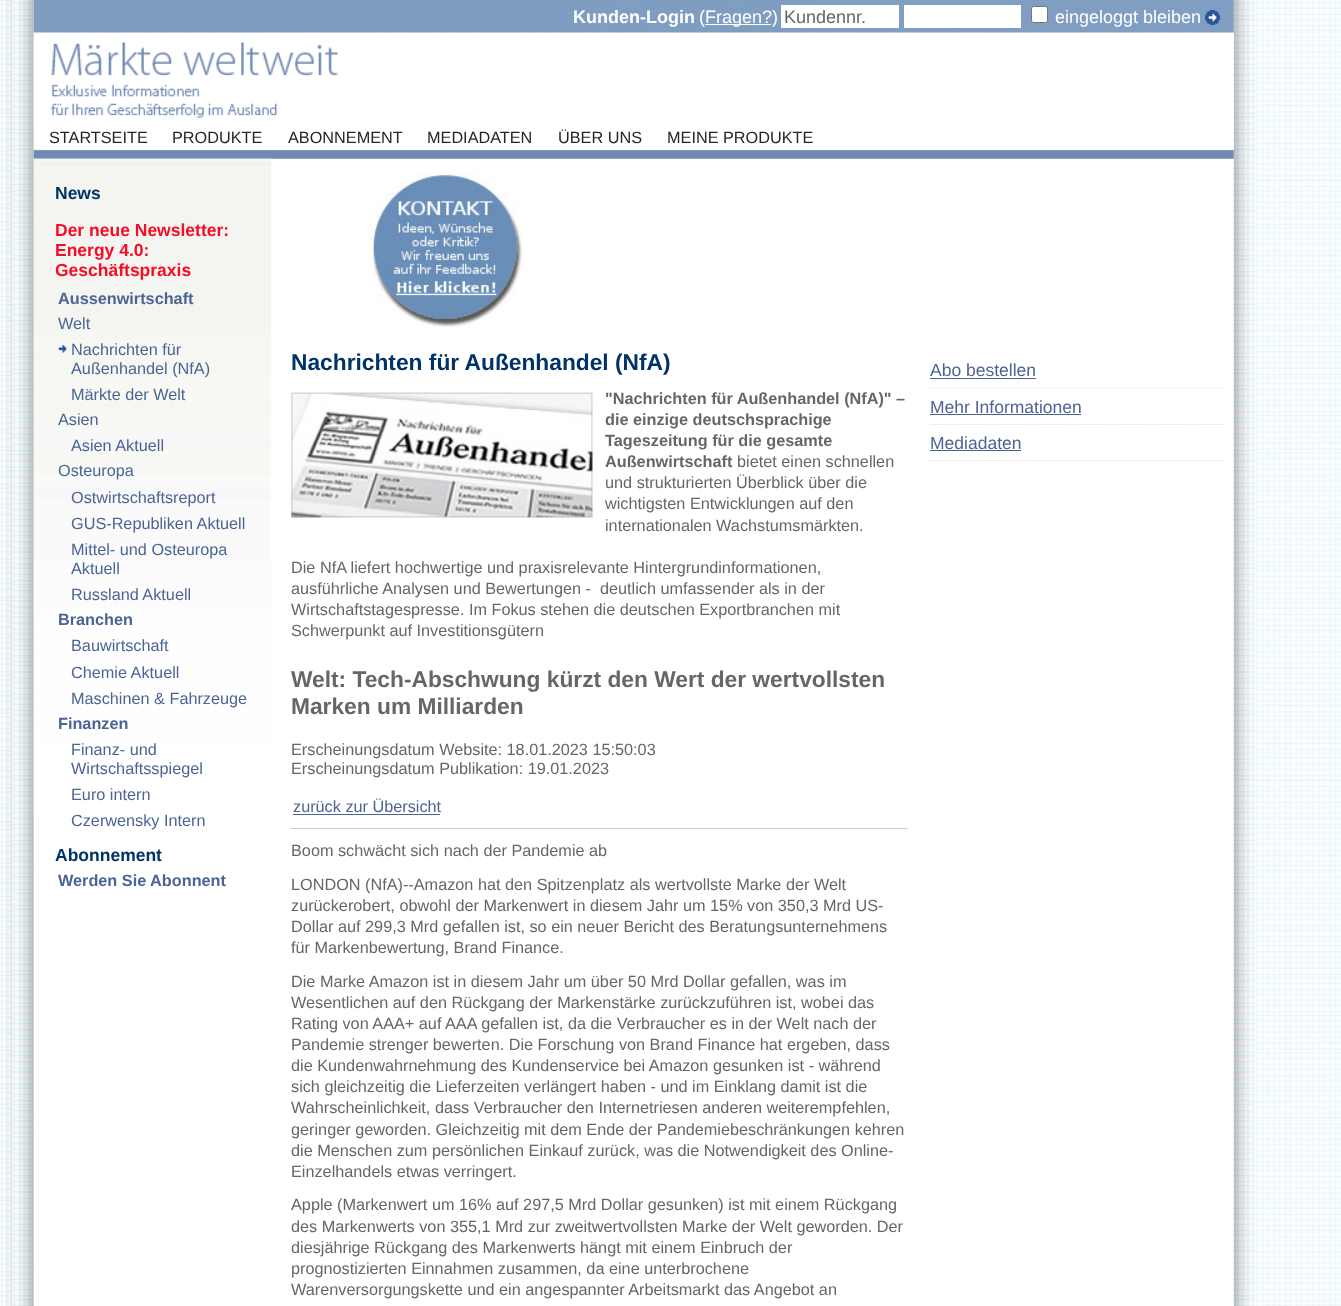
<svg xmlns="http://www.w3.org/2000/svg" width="1341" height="1306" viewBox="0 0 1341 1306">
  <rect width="100%" height="100%" fill="#fff"/>
  <image x="0" y="0" width="1341" height="1306" href="img/1.png"/>
  <image x="12" y="0" width="1" height="1306" href="img/2.png"/>
  <image x="12" y="0" width="1243" height="163" href="img/3.png"/>
  <image x="33" y="0" width="1201" height="159" href="img/4.png"/>
  <path d="M705 24h66v1H705z" fill="#fff"/>
  <path d="M781 5h118v23H781z" fill="#fff"/>
  <path d="M904 5h117v23H904z" fill="#fff"/>
  <rect x="1031.5" y="6.5" width="16" height="16" rx="2" fill="#fff" stroke="#767676"/>
  <image x="1205" y="10" width="15" height="15" href="img/5.png"/>
  <image x="33" y="42" width="305" height="82" href="img/6.png"/>
  <image x="12" y="158" width="1243" height="1148" href="img/7.png"/>
  <path d="M1254.5 159V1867.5" fill="none" stroke="#fff" stroke-width="1.2" stroke-dasharray="1.25 1.25"/>
  <image x="33" y="158" width="239" height="658" href="img/8.png"/>
  <image x="58" y="345" width="9" height="8" href="img/9.png"/>
  <image x="366" y="171" width="157" height="157" href="img/10.png"/>
  <image x="291" y="392" width="302" height="126" href="img/11.png"/>
  <path d="M291 828h617v1H291z" fill="#ccc"/>
  <path d="M293 814h147v1H293z" fill="#4b6495"/>
  <path d="M930 388H1224" fill="none" stroke="#e0e0e0" stroke-width="1.2" stroke-dasharray="1.25 1.25"/>
  <path d="M930 378h106v1H930z" fill="#4b6495"/>
  <path d="M930 424.5H1224" fill="none" stroke="#e0e0e0" stroke-width="1.2" stroke-dasharray="1.25 1.25"/>
  <path d="M930 414h151v1H930z" fill="#4b6495"/>
  <path d="M930 460.5H1224" fill="none" stroke="#e0e0e0" stroke-width="1.2" stroke-dasharray="1.25 1.25"/>
  <path d="M930 450h91v1H930z" fill="#4b6495"/>
  <text x="573" y="23" font-family="Liberation Sans" font-size="18" font-weight="bold" fill="#fff">Kunden-Login</text>
  <g font-family="Liberation Sans" font-size="18" fill="#fff">
    <text x="699" y="23">(</text>
    <text x="705" y="23">Fragen?)</text>
  </g>
  <text x="784" y="23" font-family="Liberation Sans" font-size="18" fill="#666">Kundennr.</text>
  <text x="1055" y="23" font-family="Liberation Sans" font-size="18" fill="#fff">eingeloggt bleiben</text>
  <g font-family="Liberation Sans" font-size="16.25" fill="#2a2520">
    <text x="49" y="143">STARTSEITE</text>
    <text x="172" y="143">PRODUKTE</text>
    <text x="288" y="143">ABONNEMENT</text>
    <text x="427" y="143">MEDIADATEN</text>
    <text x="558" y="143">ÜBER UNS</text>
    <text x="667" y="143">MEINE PRODUKTE</text>
  </g>
  <text x="55" y="199" font-family="Liberation Sans" font-size="17.5" font-weight="bold" fill="#036">News</text>
  <g font-family="Liberation Sans" font-size="17.5" font-weight="bold" fill="#f60c27">
    <text x="55" y="236">Der neue Newsletter:</text>
    <text x="55" y="256">Energy 4.0:</text>
    <text x="55" y="276">Geschäftspraxis</text>
  </g>
  <text x="58" y="304" font-family="Liberation Sans" font-size="16.25" font-weight="bold" fill="#4b6495">Aussenwirtschaft</text>
  <g font-family="Liberation Sans" font-size="16.25" fill="#4b6495">
    <text x="58" y="329">Welt</text>
    <text x="71" y="355">Nachrichten für</text>
    <text x="71" y="374">Außenhandel (NfA)</text>
    <text x="71" y="400">Märkte der Welt</text>
    <text x="58" y="425">Asien</text>
    <text x="71" y="451">Asien Aktuell</text>
    <text x="58" y="476">Osteuropa</text>
    <text x="71" y="503">Ostwirtschaftsreport</text>
    <text x="71" y="529">GUS-Republiken Aktuell</text>
    <text x="71" y="555">Mittel- und Osteuropa</text>
    <text x="71" y="574">Aktuell</text>
    <text x="71" y="600">Russland Aktuell</text>
  </g>
  <text x="58" y="625" font-family="Liberation Sans" font-size="16.25" font-weight="bold" fill="#4b6495">Branchen</text>
  <g font-family="Liberation Sans" font-size="16.25" fill="#4b6495">
    <text x="71" y="651">Bauwirtschaft</text>
    <text x="71" y="678">Chemie Aktuell</text>
    <text x="71" y="704">Maschinen &amp; Fahrzeuge</text>
  </g>
  <text x="58" y="729" font-family="Liberation Sans" font-size="16.25" font-weight="bold" fill="#4b6495">Finanzen</text>
  <g font-family="Liberation Sans" font-size="16.25" fill="#4b6495">
    <text x="71" y="755">Finanz- und</text>
    <text x="71" y="774">Wirtschaftsspiegel</text>
    <text x="71" y="800">Euro intern</text>
    <text x="71" y="826">Czerwensky Intern</text>
  </g>
  <text x="55" y="861" font-family="Liberation Sans" font-size="17.5" font-weight="bold" fill="#036">Abonnement</text>
  <text x="58" y="886" font-family="Liberation Sans" font-size="16.25" font-weight="bold" fill="#4b6495">Werden Sie Abonnent</text>
  <text x="291" y="370" font-family="Liberation Sans" font-size="22.75" font-weight="bold" fill="#036">Nachrichten für Außenhandel (NfA)</text>
  <g font-family="Liberation Sans" font-size="16.25" font-weight="bold" fill="#666">
    <text x="605" y="404">"Nachrichten für Außenhandel (NfA)" –</text>
    <text x="605" y="425">die einzige deutschsprachige</text>
    <text x="605" y="446">Tageszeitung für die gesamte</text>
    <text x="605" y="467">Außenwirtschaft</text>
  </g>
  <g font-family="Liberation Sans" font-size="16.25" fill="#666">
    <text x="737" y="467">bietet einen schnellen</text>
    <text x="605" y="488">und strukturierten Überblick über die</text>
    <text x="605" y="509">wichtigsten Entwicklungen auf den</text>
    <text x="605" y="531">internationalen Wachstumsmärkten.</text>
    <text x="291" y="573">Die NfA liefert hochwertige und praxisrelevante Hintergrundinformationen,</text>
    <text x="291" y="594" xml:space="preserve">ausführliche Analysen und Bewertungen -  deutlich umfassender als in der</text>
    <text x="291" y="615">Wirtschaftstagespresse. Im Fokus stehen die deutschen Exportbranchen mit</text>
    <text x="291" y="636">Schwerpunkt auf Investitionsgütern</text>
  </g>
  <g font-family="Liberation Sans" font-size="22.75" font-weight="bold" fill="#666">
    <text x="291" y="687">Welt: Tech-Abschwung kürzt den Wert der wertvollsten</text>
    <text x="291" y="714">Marken um Milliarden</text>
  </g>
  <g font-family="Liberation Sans" font-size="16.25" fill="#666">
    <text x="291" y="755">Erscheinungsdatum Website: 18.01.2023 15:50:03</text>
    <text x="291" y="774">Erscheinungsdatum Publikation: 19.01.2023</text>
  </g>
  <text x="293" y="812" font-family="Liberation Sans" font-size="16.25" fill="#4b6495">zurück zur Übersicht</text>
  <g font-family="Liberation Sans" font-size="16.25" fill="#666">
    <text x="291" y="856">Boom schwächt sich nach der Pandemie ab</text>
    <text x="291" y="890">LONDON (NfA)--Amazon hat den Spitzenplatz als wertvollste Marke der Welt</text>
    <text x="291" y="911">zurückerobert, obwohl der Markenwert in diesem Jahr um 15% von 350,3 Mrd US-</text>
    <text x="291" y="932">Dollar auf 299,3 Mrd gefallen ist, so ein neuer Bericht des Beratungsunternehmens</text>
    <text x="291" y="953">für Markenbewertung, Brand Finance.</text>
    <text x="291" y="987">Die Marke Amazon ist in diesem Jahr um über 50 Mrd Dollar gefallen, was im</text>
    <text x="291" y="1008">Wesentlichen auf den Rückgang der Markenstärke zurückzuführen ist, wobei das</text>
    <text x="291" y="1029">Rating von AAA+ auf AAA gefallen ist, da die Verbraucher es in der Welt nach der</text>
    <text x="291" y="1050">Pandemie strenger bewerten. Die Forschung von Brand Finance hat ergeben, dass</text>
    <text x="291" y="1071">die Kundenwahrnehmung des Kundenservice bei Amazon gesunken ist - während</text>
    <text x="291" y="1092">sich gleichzeitig die Lieferzeiten verlängert haben - und im Einklang damit ist die</text>
    <text x="291" y="1113">Wahrscheinlichkeit, dass Verbraucher den Internetriesen anderen weiterempfehlen,</text>
    <text x="291" y="1135">geringer geworden. Gleichzeitig mit dem Ende der Pandemiebeschränkungen kehren</text>
    <text x="291" y="1156">die Menschen zum persönlichen Einkauf zurück, was die Notwendigkeit des Online-</text>
    <text x="291" y="1177">Einzelhandels etwas verringert.</text>
    <text x="291" y="1210">Apple (Markenwert um 16% auf 297,5 Mrd Dollar gesunken) ist mit einem Rückgang</text>
    <text x="291" y="1232">des Markenwerts von 355,1 Mrd zur zweitwertvollsten Marke der Welt geworden. Der</text>
    <text x="291" y="1253">diesjährige Rückgang des Markenwerts hängt mit einem Einbruch der</text>
    <text x="291" y="1274">prognostizierten Einnahmen zusammen, da eine unterbrochene</text>
    <text x="291" y="1295">Warenversorgungskette und ein angespannter Arbeitsmarkt das Angebot an</text>
  </g>
  <g font-family="Liberation Sans" font-size="17.5" fill="#4b6495">
    <text x="930" y="376">Abo bestellen</text>
    <text x="930" y="413">Mehr Informationen</text>
    <text x="930" y="449">Mediadaten</text>
  </g>
</svg>
